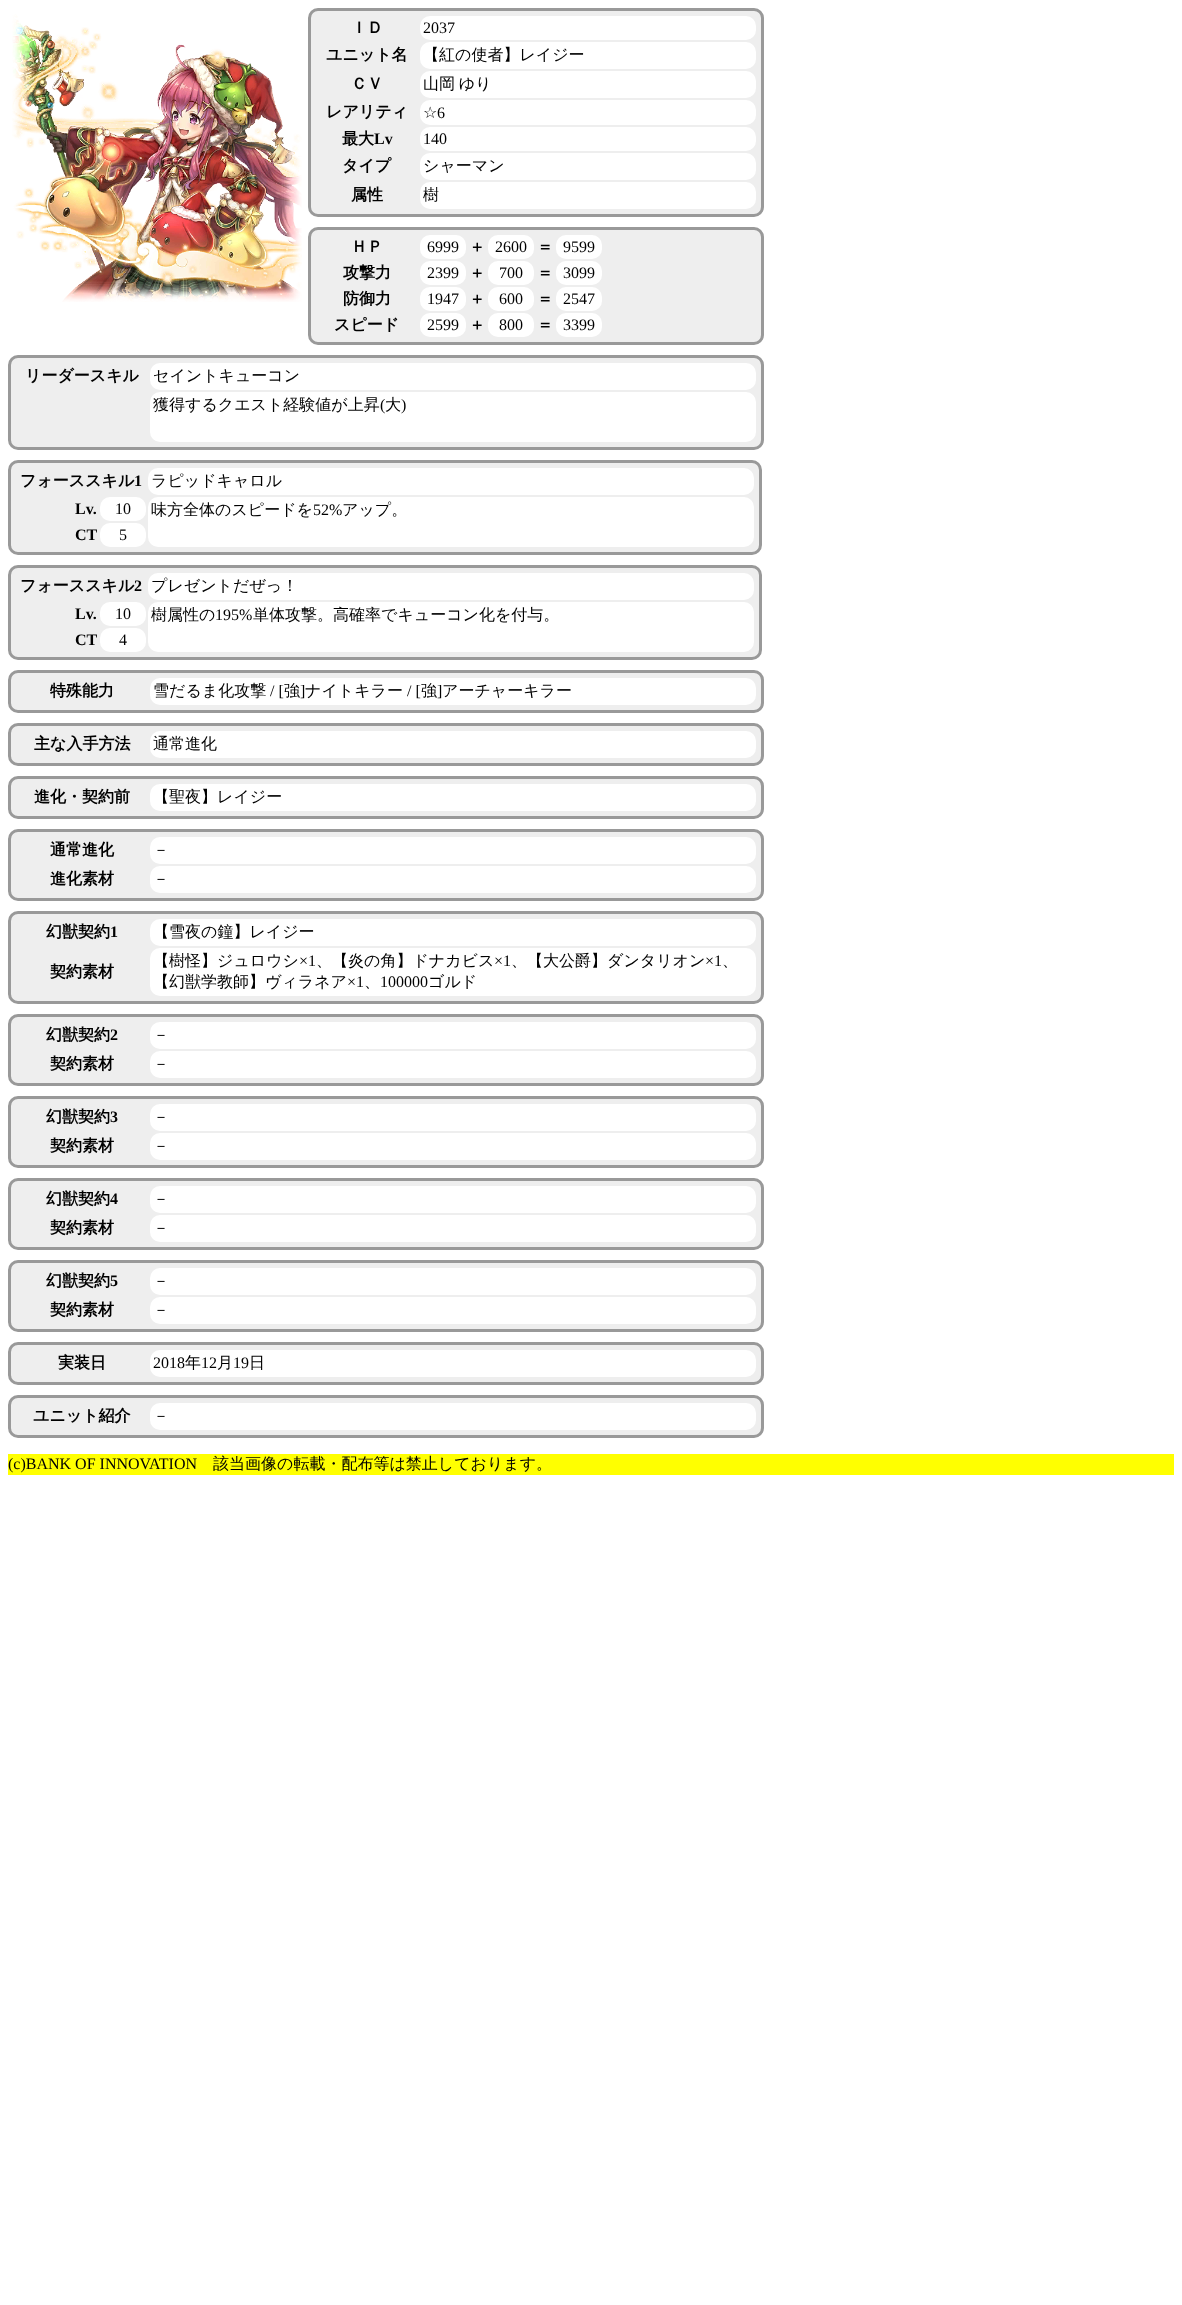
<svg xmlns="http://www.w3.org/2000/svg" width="1182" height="2305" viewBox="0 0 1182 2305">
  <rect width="100%" height="100%" fill="#fff"/>
  <image x="12" y="14" width="290" height="288" href="img/1.png"/>
  <rect x="309.5" y="9.5" width="453" height="206" rx="8.5" fill="#eee" stroke="#999" stroke-width="3"/>
  <rect x="420" y="16" width="336" height="24" rx="10" fill="#fff"/>
  <rect x="420" y="42" width="336" height="27" rx="10" fill="#fff"/>
  <rect x="420" y="71" width="336" height="27" rx="10" fill="#fff"/>
  <rect x="420" y="100" width="336" height="25" rx="10" fill="#fff"/>
  <rect x="420" y="127" width="336" height="24" rx="10" fill="#fff"/>
  <rect x="420" y="153" width="336" height="27" rx="10" fill="#fff"/>
  <rect x="420" y="182" width="336" height="27" rx="10" fill="#fff"/>
  <rect x="309.5" y="228.5" width="453" height="115" rx="8.5" fill="#eee" stroke="#999" stroke-width="3"/>
  <rect x="420" y="235" width="46" height="24" rx="10" fill="#fff"/>
  <rect x="488" y="235" width="46" height="24" rx="10" fill="#fff"/>
  <rect x="556" y="235" width="46" height="24" rx="10" fill="#fff"/>
  <rect x="420" y="261" width="46" height="24" rx="10" fill="#fff"/>
  <rect x="488" y="261" width="46" height="24" rx="10" fill="#fff"/>
  <rect x="556" y="261" width="46" height="24" rx="10" fill="#fff"/>
  <rect x="420" y="287" width="46" height="24" rx="10" fill="#fff"/>
  <rect x="488" y="287" width="46" height="24" rx="10" fill="#fff"/>
  <rect x="556" y="287" width="46" height="24" rx="10" fill="#fff"/>
  <rect x="420" y="313" width="46" height="24" rx="10" fill="#fff"/>
  <rect x="488" y="313" width="46" height="24" rx="10" fill="#fff"/>
  <rect x="556" y="313" width="46" height="24" rx="10" fill="#fff"/>
  <rect x="9.5" y="356.5" width="753" height="92" rx="8.5" fill="#eee" stroke="#999" stroke-width="3"/>
  <rect x="150" y="363" width="606" height="27" rx="10" fill="#fff"/>
  <rect x="150" y="392" width="606" height="50" rx="10" fill="#fff"/>
  <rect x="9.5" y="461.5" width="751" height="92" rx="8.5" fill="#eee" stroke="#999" stroke-width="3"/>
  <rect x="148" y="468" width="606" height="27" rx="10" fill="#fff"/>
  <rect x="100" y="497" width="46" height="24" rx="10" fill="#fff"/>
  <rect x="148" y="497" width="606" height="50" rx="10" fill="#fff"/>
  <rect x="100" y="523" width="46" height="24" rx="10" fill="#fff"/>
  <rect x="9.5" y="566.5" width="751" height="92" rx="8.5" fill="#eee" stroke="#999" stroke-width="3"/>
  <rect x="148" y="573" width="606" height="27" rx="10" fill="#fff"/>
  <rect x="100" y="602" width="46" height="24" rx="10" fill="#fff"/>
  <rect x="148" y="602" width="606" height="50" rx="10" fill="#fff"/>
  <rect x="100" y="628" width="46" height="24" rx="10" fill="#fff"/>
  <rect x="9.5" y="671.5" width="753" height="40" rx="8.5" fill="#eee" stroke="#999" stroke-width="3"/>
  <rect x="150" y="678" width="606" height="27" rx="10" fill="#fff"/>
  <rect x="9.5" y="724.5" width="753" height="40" rx="8.5" fill="#eee" stroke="#999" stroke-width="3"/>
  <rect x="150" y="731" width="606" height="27" rx="10" fill="#fff"/>
  <rect x="9.5" y="777.5" width="753" height="40" rx="8.5" fill="#eee" stroke="#999" stroke-width="3"/>
  <rect x="150" y="784" width="606" height="27" rx="10" fill="#fff"/>
  <rect x="9.5" y="830.5" width="753" height="69" rx="8.5" fill="#eee" stroke="#999" stroke-width="3"/>
  <rect x="150" y="837" width="606" height="27" rx="10" fill="#fff"/>
  <rect x="150" y="866" width="606" height="27" rx="10" fill="#fff"/>
  <rect x="9.5" y="912.5" width="753" height="90" rx="8.5" fill="#eee" stroke="#999" stroke-width="3"/>
  <rect x="150" y="919" width="606" height="27" rx="10" fill="#fff"/>
  <rect x="150" y="948" width="606" height="48" rx="10" fill="#fff"/>
  <rect x="9.5" y="1015.5" width="753" height="69" rx="8.5" fill="#eee" stroke="#999" stroke-width="3"/>
  <rect x="150" y="1022" width="606" height="27" rx="10" fill="#fff"/>
  <rect x="150" y="1051" width="606" height="27" rx="10" fill="#fff"/>
  <rect x="9.5" y="1097.5" width="753" height="69" rx="8.5" fill="#eee" stroke="#999" stroke-width="3"/>
  <rect x="150" y="1104" width="606" height="27" rx="10" fill="#fff"/>
  <rect x="150" y="1133" width="606" height="27" rx="10" fill="#fff"/>
  <rect x="9.5" y="1179.5" width="753" height="69" rx="8.5" fill="#eee" stroke="#999" stroke-width="3"/>
  <rect x="150" y="1186" width="606" height="27" rx="10" fill="#fff"/>
  <rect x="150" y="1215" width="606" height="27" rx="10" fill="#fff"/>
  <rect x="9.5" y="1261.5" width="753" height="69" rx="8.5" fill="#eee" stroke="#999" stroke-width="3"/>
  <rect x="150" y="1268" width="606" height="27" rx="10" fill="#fff"/>
  <rect x="150" y="1297" width="606" height="27" rx="10" fill="#fff"/>
  <rect x="9.5" y="1343.5" width="753" height="40" rx="8.5" fill="#eee" stroke="#999" stroke-width="3"/>
  <rect x="150" y="1350" width="606" height="27" rx="10" fill="#fff"/>
  <rect x="9.5" y="1396.5" width="753" height="40" rx="8.5" fill="#eee" stroke="#999" stroke-width="3"/>
  <rect x="150" y="1403" width="606" height="27" rx="10" fill="#fff"/>
  <path d="M8 1454h1166v21H8z" fill="#ff0"/>
  <text x="351" y="33" font-family="WenQuanYi Zen Hei" font-size="16" font-weight="bold" fill="#000">ＩＤ</text>
  <text x="423" y="33" font-family="Liberation Serif" font-size="16" fill="#000">2037</text>
  <text x="326" y="60" font-family="WenQuanYi Zen Hei" font-size="16" font-weight="bold" fill="#000">ユニット名</text>
  <text x="423" y="60" font-family="WenQuanYi Zen Hei" font-size="16" font-weight="500" fill="#000">【紅の使者】レイジー</text>
  <text x="351" y="89" font-family="WenQuanYi Zen Hei" font-size="16" font-weight="bold" fill="#000">ＣＶ</text>
  <text x="423" y="89" word-spacing="-1" font-family="WenQuanYi Zen Hei" font-size="16" font-weight="500" fill="#000">山岡 ゆり</text>
  <text x="326" y="117" font-family="WenQuanYi Zen Hei" font-size="16" font-weight="bold" fill="#000">レアリティ</text>
  <text x="423" y="118" font-family="DejaVu Sans" font-size="16" fill="#000">☆</text>
  <text x="437" y="118" font-family="Liberation Serif" font-size="16" fill="#000">6</text>
  <text x="342" y="144" font-family="WenQuanYi Zen Hei" font-size="16" font-weight="bold" fill="#000">最大</text>
  <text x="374" y="144" font-family="Liberation Serif" font-size="16" font-weight="bold" fill="#000">Lv</text>
  <text x="423" y="144" font-family="Liberation Serif" font-size="16" fill="#000">140</text>
  <text x="342" y="171" font-family="WenQuanYi Zen Hei" font-size="16" font-weight="bold" fill="#000">タイプ</text>
  <text x="423" y="171" font-family="WenQuanYi Zen Hei" font-size="16" font-weight="500" fill="#000">シャーマン</text>
  <text x="351" y="200" font-family="WenQuanYi Zen Hei" font-size="16" font-weight="bold" fill="#000">属性</text>
  <text x="423" y="200" font-family="WenQuanYi Zen Hei" font-size="16" font-weight="500" fill="#000">樹</text>
  <text x="351" y="252" font-family="WenQuanYi Zen Hei" font-size="16" font-weight="bold" fill="#000">ＨＰ</text>
  <text x="427" y="252" font-family="Liberation Serif" font-size="16" fill="#000">6999</text>
  <text x="469" y="252" font-family="WenQuanYi Zen Hei" font-size="16" font-weight="bold" fill="#000">＋</text>
  <text x="495" y="252" font-family="Liberation Serif" font-size="16" fill="#000">2600</text>
  <text x="537" y="252" font-family="WenQuanYi Zen Hei" font-size="16" font-weight="bold" fill="#000">＝</text>
  <text x="563" y="252" font-family="Liberation Serif" font-size="16" fill="#000">9599</text>
  <text x="343" y="278" font-family="WenQuanYi Zen Hei" font-size="16" font-weight="bold" fill="#000">攻撃力</text>
  <text x="427" y="278" font-family="Liberation Serif" font-size="16" fill="#000">2399</text>
  <text x="469" y="278" font-family="WenQuanYi Zen Hei" font-size="16" font-weight="bold" fill="#000">＋</text>
  <text x="499" y="278" font-family="Liberation Serif" font-size="16" fill="#000">700</text>
  <text x="537" y="278" font-family="WenQuanYi Zen Hei" font-size="16" font-weight="bold" fill="#000">＝</text>
  <text x="563" y="278" font-family="Liberation Serif" font-size="16" fill="#000">3099</text>
  <text x="343" y="304" font-family="WenQuanYi Zen Hei" font-size="16" font-weight="bold" fill="#000">防御力</text>
  <text x="427" y="304" font-family="Liberation Serif" font-size="16" fill="#000">1947</text>
  <text x="469" y="304" font-family="WenQuanYi Zen Hei" font-size="16" font-weight="bold" fill="#000">＋</text>
  <text x="499" y="304" font-family="Liberation Serif" font-size="16" fill="#000">600</text>
  <text x="537" y="304" font-family="WenQuanYi Zen Hei" font-size="16" font-weight="bold" fill="#000">＝</text>
  <text x="563" y="304" font-family="Liberation Serif" font-size="16" fill="#000">2547</text>
  <text x="334" y="330" font-family="WenQuanYi Zen Hei" font-size="16" font-weight="bold" fill="#000">スピード</text>
  <text x="427" y="330" font-family="Liberation Serif" font-size="16" fill="#000">2599</text>
  <text x="469" y="330" font-family="WenQuanYi Zen Hei" font-size="16" font-weight="bold" fill="#000">＋</text>
  <text x="499" y="330" font-family="Liberation Serif" font-size="16" fill="#000">800</text>
  <text x="537" y="330" font-family="WenQuanYi Zen Hei" font-size="16" font-weight="bold" fill="#000">＝</text>
  <text x="563" y="330" font-family="Liberation Serif" font-size="16" fill="#000">3399</text>
  <text x="25" y="381" font-family="WenQuanYi Zen Hei" font-size="16" font-weight="bold" fill="#000">リーダースキル</text>
  <g font-family="WenQuanYi Zen Hei" font-size="16" font-weight="500" fill="#000">
    <text x="153" y="381">セイントキューコン</text>
    <text x="153" y="410">獲得するクエスト経験値が上昇</text>
  </g>
  <text x="380" y="410" font-family="Liberation Serif" font-size="16" fill="#000">(</text>
  <text x="385" y="410" font-family="WenQuanYi Zen Hei" font-size="16" font-weight="500" fill="#000">大</text>
  <text x="401" y="410" font-family="Liberation Serif" font-size="16" fill="#000">)</text>
  <text x="20" y="486" font-family="WenQuanYi Zen Hei" font-size="16" font-weight="bold" fill="#000">フォーススキル</text>
  <text x="134" y="486" font-family="Liberation Serif" font-size="16" font-weight="bold" fill="#000">1</text>
  <text x="151" y="486" font-family="WenQuanYi Zen Hei" font-size="16" font-weight="500" fill="#000">ラピッドキャロル</text>
  <text x="75" y="514" font-family="Liberation Serif" font-size="16" font-weight="bold" fill="#000">Lv.</text>
  <text x="115" y="514" font-family="Liberation Serif" font-size="16" fill="#000">10</text>
  <text x="151" y="515" font-family="WenQuanYi Zen Hei" font-size="16" font-weight="500" fill="#000">味方全体のスピードを</text>
  <text x="313" y="515" font-family="Liberation Serif" font-size="16" fill="#000">52%</text>
  <text x="342" y="515" font-family="WenQuanYi Zen Hei" font-size="16" font-weight="500" fill="#000">アップ。</text>
  <text x="75" y="540" font-family="Liberation Serif" font-size="16" font-weight="bold" fill="#000">CT</text>
  <text x="119" y="540" font-family="Liberation Serif" font-size="16" fill="#000">5</text>
  <text x="20" y="591" font-family="WenQuanYi Zen Hei" font-size="16" font-weight="bold" fill="#000">フォーススキル</text>
  <text x="134" y="591" font-family="Liberation Serif" font-size="16" font-weight="bold" fill="#000">2</text>
  <text x="151" y="591" font-family="WenQuanYi Zen Hei" font-size="16" font-weight="500" fill="#000">プレゼントだぜっ！</text>
  <text x="75" y="619" font-family="Liberation Serif" font-size="16" font-weight="bold" fill="#000">Lv.</text>
  <text x="115" y="619" font-family="Liberation Serif" font-size="16" fill="#000">10</text>
  <text x="151" y="620" font-family="WenQuanYi Zen Hei" font-size="16" font-weight="500" fill="#000">樹属性の</text>
  <text x="215" y="620" font-family="Liberation Serif" font-size="16" fill="#000">195%</text>
  <text x="253" y="620" font-family="WenQuanYi Zen Hei" font-size="16" font-weight="500" fill="#000">単体攻撃。高確率でキューコン化を付与。</text>
  <text x="75" y="645" font-family="Liberation Serif" font-size="16" font-weight="bold" fill="#000">CT</text>
  <text x="119" y="645" font-family="Liberation Serif" font-size="16" fill="#000">4</text>
  <text x="50" y="696" font-family="WenQuanYi Zen Hei" font-size="16" font-weight="bold" fill="#000">特殊能力</text>
  <text x="153" y="696" font-family="WenQuanYi Zen Hei" font-size="16" font-weight="500" fill="#000">雪だるま化攻撃</text>
  <text x="270" y="696" font-family="Liberation Serif" font-size="16" fill="#000">/ [</text>
  <text x="284" y="696" font-family="WenQuanYi Zen Hei" font-size="16" font-weight="500" fill="#000">強</text>
  <text x="300" y="696" font-family="Liberation Serif" font-size="16" fill="#000">]</text>
  <text x="305" y="696" font-family="WenQuanYi Zen Hei" font-size="16" font-weight="500" fill="#000">ナイトキラー</text>
  <text x="407" y="696" font-family="Liberation Serif" font-size="16" fill="#000">/ [</text>
  <text x="421" y="696" font-family="WenQuanYi Zen Hei" font-size="16" font-weight="500" fill="#000">強</text>
  <text x="437" y="696" font-family="Liberation Serif" font-size="16" fill="#000">]</text>
  <text x="442" y="696" font-family="WenQuanYi Zen Hei" font-size="16" font-weight="500" fill="#000">アーチャーキラー</text>
  <text x="34" y="749" font-family="WenQuanYi Zen Hei" font-size="16" font-weight="bold" fill="#000">主な入手方法</text>
  <text x="153" y="749" font-family="WenQuanYi Zen Hei" font-size="16" font-weight="500" fill="#000">通常進化</text>
  <text x="34" y="802" font-family="WenQuanYi Zen Hei" font-size="16" font-weight="bold" fill="#000">進化・契約前</text>
  <text x="153" y="802" font-family="WenQuanYi Zen Hei" font-size="16" font-weight="500" fill="#000">【聖夜】レイジー</text>
  <text x="50" y="855" font-family="WenQuanYi Zen Hei" font-size="16" font-weight="bold" fill="#000">通常進化</text>
  <text x="153" y="855" font-family="WenQuanYi Zen Hei" font-size="16" font-weight="500" fill="#000">－</text>
  <text x="50" y="884" font-family="WenQuanYi Zen Hei" font-size="16" font-weight="bold" fill="#000">進化素材</text>
  <text x="153" y="884" font-family="WenQuanYi Zen Hei" font-size="16" font-weight="500" fill="#000">－</text>
  <text x="46" y="937" font-family="WenQuanYi Zen Hei" font-size="16" font-weight="bold" fill="#000">幻獣契約</text>
  <text x="110" y="937" font-family="Liberation Serif" font-size="16" font-weight="bold" fill="#000">1</text>
  <text x="153" y="937" font-family="WenQuanYi Zen Hei" font-size="16" font-weight="500" fill="#000">【雪夜の鐘】レイジー</text>
  <text x="50" y="977" font-family="WenQuanYi Zen Hei" font-size="16" font-weight="bold" fill="#000">契約素材</text>
  <text x="153" y="966" font-family="WenQuanYi Zen Hei" font-size="16" font-weight="500" fill="#000">【樹怪】ジュロウシ</text>
  <text x="299" y="966" font-family="Liberation Serif" font-size="16" fill="#000">×1</text>
  <text x="316" y="966" font-family="WenQuanYi Zen Hei" font-size="16" font-weight="500" fill="#000">、【炎の角】ドナカビス</text>
  <text x="494" y="966" font-family="Liberation Serif" font-size="16" fill="#000">×1</text>
  <text x="511" y="966" font-family="WenQuanYi Zen Hei" font-size="16" font-weight="500" fill="#000">、【大公爵】ダンタリオン</text>
  <text x="705" y="966" font-family="Liberation Serif" font-size="16" fill="#000">×1</text>
  <g font-family="WenQuanYi Zen Hei" font-size="16" font-weight="500" fill="#000">
    <text x="722" y="966">、</text>
    <text x="153" y="987">【幻獣学教師】ヴィラネア</text>
  </g>
  <text x="347" y="987" font-family="Liberation Serif" font-size="16" fill="#000">×1</text>
  <text x="364" y="987" font-family="WenQuanYi Zen Hei" font-size="16" font-weight="500" fill="#000">、</text>
  <text x="380" y="987" font-family="Liberation Serif" font-size="16" fill="#000">100000</text>
  <text x="428" y="987" font-family="WenQuanYi Zen Hei" font-size="16" font-weight="500" fill="#000">ゴルド</text>
  <text x="46" y="1040" font-family="WenQuanYi Zen Hei" font-size="16" font-weight="bold" fill="#000">幻獣契約</text>
  <text x="110" y="1040" font-family="Liberation Serif" font-size="16" font-weight="bold" fill="#000">2</text>
  <text x="153" y="1040" font-family="WenQuanYi Zen Hei" font-size="16" font-weight="500" fill="#000">－</text>
  <text x="50" y="1069" font-family="WenQuanYi Zen Hei" font-size="16" font-weight="bold" fill="#000">契約素材</text>
  <text x="153" y="1069" font-family="WenQuanYi Zen Hei" font-size="16" font-weight="500" fill="#000">－</text>
  <text x="46" y="1122" font-family="WenQuanYi Zen Hei" font-size="16" font-weight="bold" fill="#000">幻獣契約</text>
  <text x="110" y="1122" font-family="Liberation Serif" font-size="16" font-weight="bold" fill="#000">3</text>
  <text x="153" y="1122" font-family="WenQuanYi Zen Hei" font-size="16" font-weight="500" fill="#000">－</text>
  <text x="50" y="1151" font-family="WenQuanYi Zen Hei" font-size="16" font-weight="bold" fill="#000">契約素材</text>
  <text x="153" y="1151" font-family="WenQuanYi Zen Hei" font-size="16" font-weight="500" fill="#000">－</text>
  <text x="46" y="1204" font-family="WenQuanYi Zen Hei" font-size="16" font-weight="bold" fill="#000">幻獣契約</text>
  <text x="110" y="1204" font-family="Liberation Serif" font-size="16" font-weight="bold" fill="#000">4</text>
  <text x="153" y="1204" font-family="WenQuanYi Zen Hei" font-size="16" font-weight="500" fill="#000">－</text>
  <text x="50" y="1233" font-family="WenQuanYi Zen Hei" font-size="16" font-weight="bold" fill="#000">契約素材</text>
  <text x="153" y="1233" font-family="WenQuanYi Zen Hei" font-size="16" font-weight="500" fill="#000">－</text>
  <text x="46" y="1286" font-family="WenQuanYi Zen Hei" font-size="16" font-weight="bold" fill="#000">幻獣契約</text>
  <text x="110" y="1286" font-family="Liberation Serif" font-size="16" font-weight="bold" fill="#000">5</text>
  <text x="153" y="1286" font-family="WenQuanYi Zen Hei" font-size="16" font-weight="500" fill="#000">－</text>
  <text x="50" y="1315" font-family="WenQuanYi Zen Hei" font-size="16" font-weight="bold" fill="#000">契約素材</text>
  <text x="153" y="1315" font-family="WenQuanYi Zen Hei" font-size="16" font-weight="500" fill="#000">－</text>
  <text x="58" y="1368" font-family="WenQuanYi Zen Hei" font-size="16" font-weight="bold" fill="#000">実装日</text>
  <text x="153" y="1368" font-family="Liberation Serif" font-size="16" fill="#000">2018</text>
  <text x="185" y="1368" font-family="WenQuanYi Zen Hei" font-size="16" font-weight="500" fill="#000">年</text>
  <text x="201" y="1368" font-family="Liberation Serif" font-size="16" fill="#000">12</text>
  <text x="217" y="1368" font-family="WenQuanYi Zen Hei" font-size="16" font-weight="500" fill="#000">月</text>
  <text x="233" y="1368" font-family="Liberation Serif" font-size="16" fill="#000">19</text>
  <text x="249" y="1368" font-family="WenQuanYi Zen Hei" font-size="16" font-weight="500" fill="#000">日</text>
  <text x="33" y="1421" font-family="WenQuanYi Zen Hei" font-size="16" font-weight="bold" fill="#000">ユニット紹介</text>
  <text x="153" y="1421" font-family="WenQuanYi Zen Hei" font-size="16" font-weight="500" fill="#000">－</text>
  <text x="8" y="1469" font-family="Liberation Serif" font-size="16" fill="#000">(c)BANK OF INNOVATION</text>
  <text x="213" y="1469" font-family="WenQuanYi Zen Hei" font-size="16" font-weight="500" fill="#000">該当画像の転載・配布等は禁止しております。</text>
</svg>
